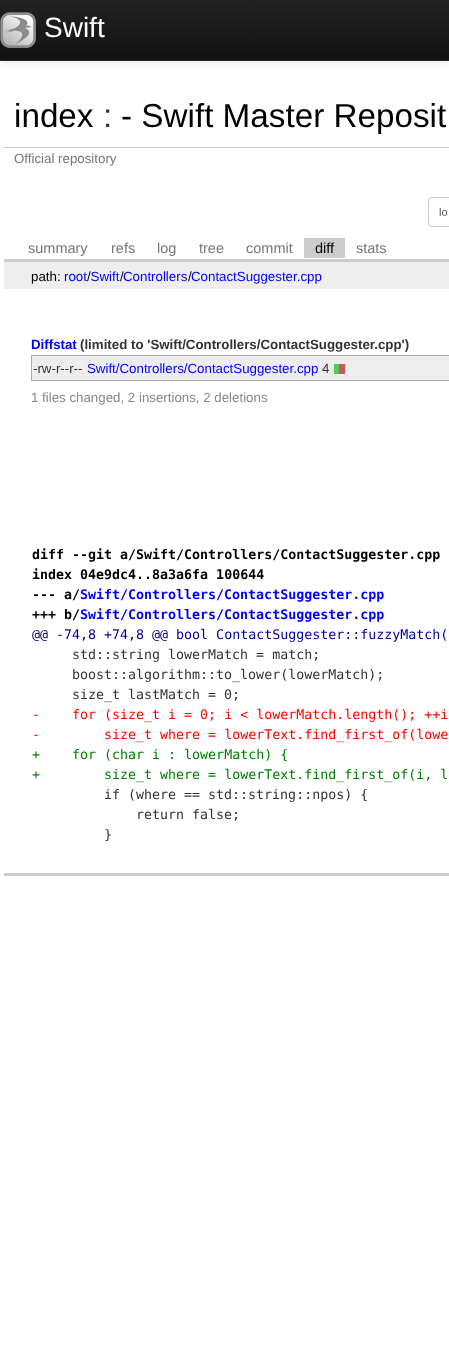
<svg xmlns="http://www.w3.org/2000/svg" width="449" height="1365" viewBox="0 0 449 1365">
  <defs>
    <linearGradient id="g1" gradientUnits="userSpaceOnUse" x1="225" y1="0" x2="225" y2="60"><stop offset="0" stop-color="#222"/><stop offset="1" stop-color="#111"/></linearGradient>
  </defs>
  <rect width="100%" height="100%" fill="#fff"/>
  <path d="M0 1h449v61H0z" fill="#0000001a" filter="blur(5px)"/>
  <path d="M0 0h449v60H0z" fill="url(#g1)"/>
  <path d="M0 60h449v1H0z" fill="#252525"/>
  <image x="0" y="12" width="36" height="36" href="img/1.png"/>
  <path d="M4 147h445v1H4z" fill="#ccc"/>
  <path d="M4 259h445v3H4z" fill="#ccc"/>
  <rect x="428.5" y="197.5" width="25" height="29" rx="3.5" fill="none" stroke="#ccc"/>
  <path d="M304 238h41v20H304z" fill="#ccc"/>
  <path d="M4 262h445v27H4z" fill="#eee"/>
  <path d="M4 873h445v3H4z" fill="#ccc"/>
  <path d="M32 356h417v24H32z" fill="#eee"/>
  <path d="M31 355h418v1H31z" fill="#aaa"/>
  <path d="M31 380h418v1H31z" fill="#aaa"/>
  <path d="M31 355h1v26H31z" fill="#aaa"/>
  <path d="M334 364h5v10H334z" fill="#5c5"/>
  <path d="M339 364h6v10H339z" fill="#c55"/>
  <text x="44" y="37" font-family="Liberation Sans" font-size="28" fill="#fff">Swift</text>
  <text x="14" y="127" font-family="Liberation Sans" font-size="33.25" fill="#000">index</text>
  <text x="103" y="127" font-family="Liberation Sans" font-size="33.25" fill="#333">:</text>
  <text x="121" y="127" font-family="Liberation Sans" font-size="33.25" fill="#000">- Swift Master Reposit</text>
  <text x="14" y="163" font-family="Liberation Sans" font-size="13.3" fill="#777">Official repository</text>
  <text x="439" y="216" font-family="Liberation Sans" font-size="11" fill="#555">lo</text>
  <g font-family="Liberation Sans" font-size="14.5" fill="#777">
    <text x="28" y="253">summary</text>
    <text x="111" y="253">refs</text>
    <text x="157" y="253">log</text>
    <text x="199" y="253">tree</text>
    <text x="246" y="253">commit</text>
  </g>
  <text x="315" y="253" font-family="Liberation Sans" font-size="14.5" fill="#000">diff</text>
  <text x="356" y="253" font-family="Liberation Sans" font-size="14.5" fill="#777">stats</text>
  <text x="31" y="281" font-family="Liberation Sans" font-size="13.3" fill="#000">path:</text>
  <text x="64" y="281" font-family="Liberation Sans" font-size="13.3" fill="#00f">root Swift</text>
  <g font-family="Liberation Sans" font-size="13.3" fill="#000">
    <text x="87" y="281">/</text>
    <text x="120" y="281">/</text>
  </g>
  <text x="123" y="281" font-family="Liberation Sans" font-size="13.3" fill="#00f">Controllers ContactSuggester.cpp</text>
  <text x="188" y="281" font-family="Liberation Sans" font-size="13.3" fill="#000">/</text>
  <text x="31" y="349" font-family="Liberation Sans" font-size="13.3" font-weight="bold" fill="#00f">Diffstat</text>
  <text x="80" y="349" font-family="Liberation Sans" font-size="13.3" font-weight="bold" fill="#333">(limited to 'Swift/Controllers/ContactSuggester.cpp')</text>
  <text x="33" y="373" font-family="Liberation Sans" font-size="13.3" fill="#333">-rw-r--r--</text>
  <text x="87" y="373" font-family="Liberation Sans" font-size="13.3" fill="#00f">Swift/Controllers/ContactSuggester.cpp</text>
  <text x="322" y="373" font-family="Liberation Sans" font-size="13.3" fill="#333">4</text>
  <text x="31" y="402" font-family="Liberation Sans" font-size="13.3" fill="#888">1 files changed, 2 insertions, 2 deletions</text>
  <g font-family="DejaVu Sans Mono" font-size="13.3" font-weight="bold" fill="#000">
    <text x="32" y="559">diff --git a/Swift/Controllers/ContactSuggester.cpp</text>
    <text x="32" y="579">index 04e9dc4..8a3a6fa 100644</text>
    <text x="32" y="599">--- a/</text>
  </g>
  <text x="80" y="599" font-family="DejaVu Sans Mono" font-size="13.3" font-weight="bold" fill="#00f">Swift/Controllers/ContactSuggester.cpp</text>
  <text x="32" y="619" font-family="DejaVu Sans Mono" font-size="13.3" font-weight="bold" fill="#000">+++ b/</text>
  <text x="80" y="619" font-family="DejaVu Sans Mono" font-size="13.3" font-weight="bold" fill="#00f">Swift/Controllers/ContactSuggester.cpp</text>
  <text x="32" y="639" font-family="DejaVu Sans Mono" font-size="13.3" fill="#009">@@ -74,8 +74,8 @@ bool ContactSuggester::fuzzyMatch(</text>
  <g font-family="DejaVu Sans Mono" font-size="13.3" fill="#333">
    <text x="72" y="659">std::string lowerMatch = match;</text>
    <text x="72" y="679">boost::algorithm::to_lower(lowerMatch);</text>
    <text x="72" y="699">size_t lastMatch = 0;</text>
  </g>
  <g font-family="DejaVu Sans Mono" font-size="13.3" fill="#f00">
    <text x="32" y="719" xml:space="preserve">-    for (size_t i = 0; i &lt; lowerMatch.length(); ++i</text>
    <text x="32" y="739" xml:space="preserve">-        size_t where = lowerText.find_first_of(lowe</text>
  </g>
  <g font-family="DejaVu Sans Mono" font-size="13.3" fill="#008000">
    <text x="32" y="759" xml:space="preserve">+    for (char i : lowerMatch) {</text>
    <text x="32" y="779" xml:space="preserve">+        size_t where = lowerText.find_first_of(i, l</text>
  </g>
  <g font-family="DejaVu Sans Mono" font-size="13.3" fill="#333">
    <text x="104" y="799">if (where == std::string::npos) {</text>
    <text x="136" y="819">return false;</text>
    <text x="104" y="839">}</text>
  </g>
</svg>
